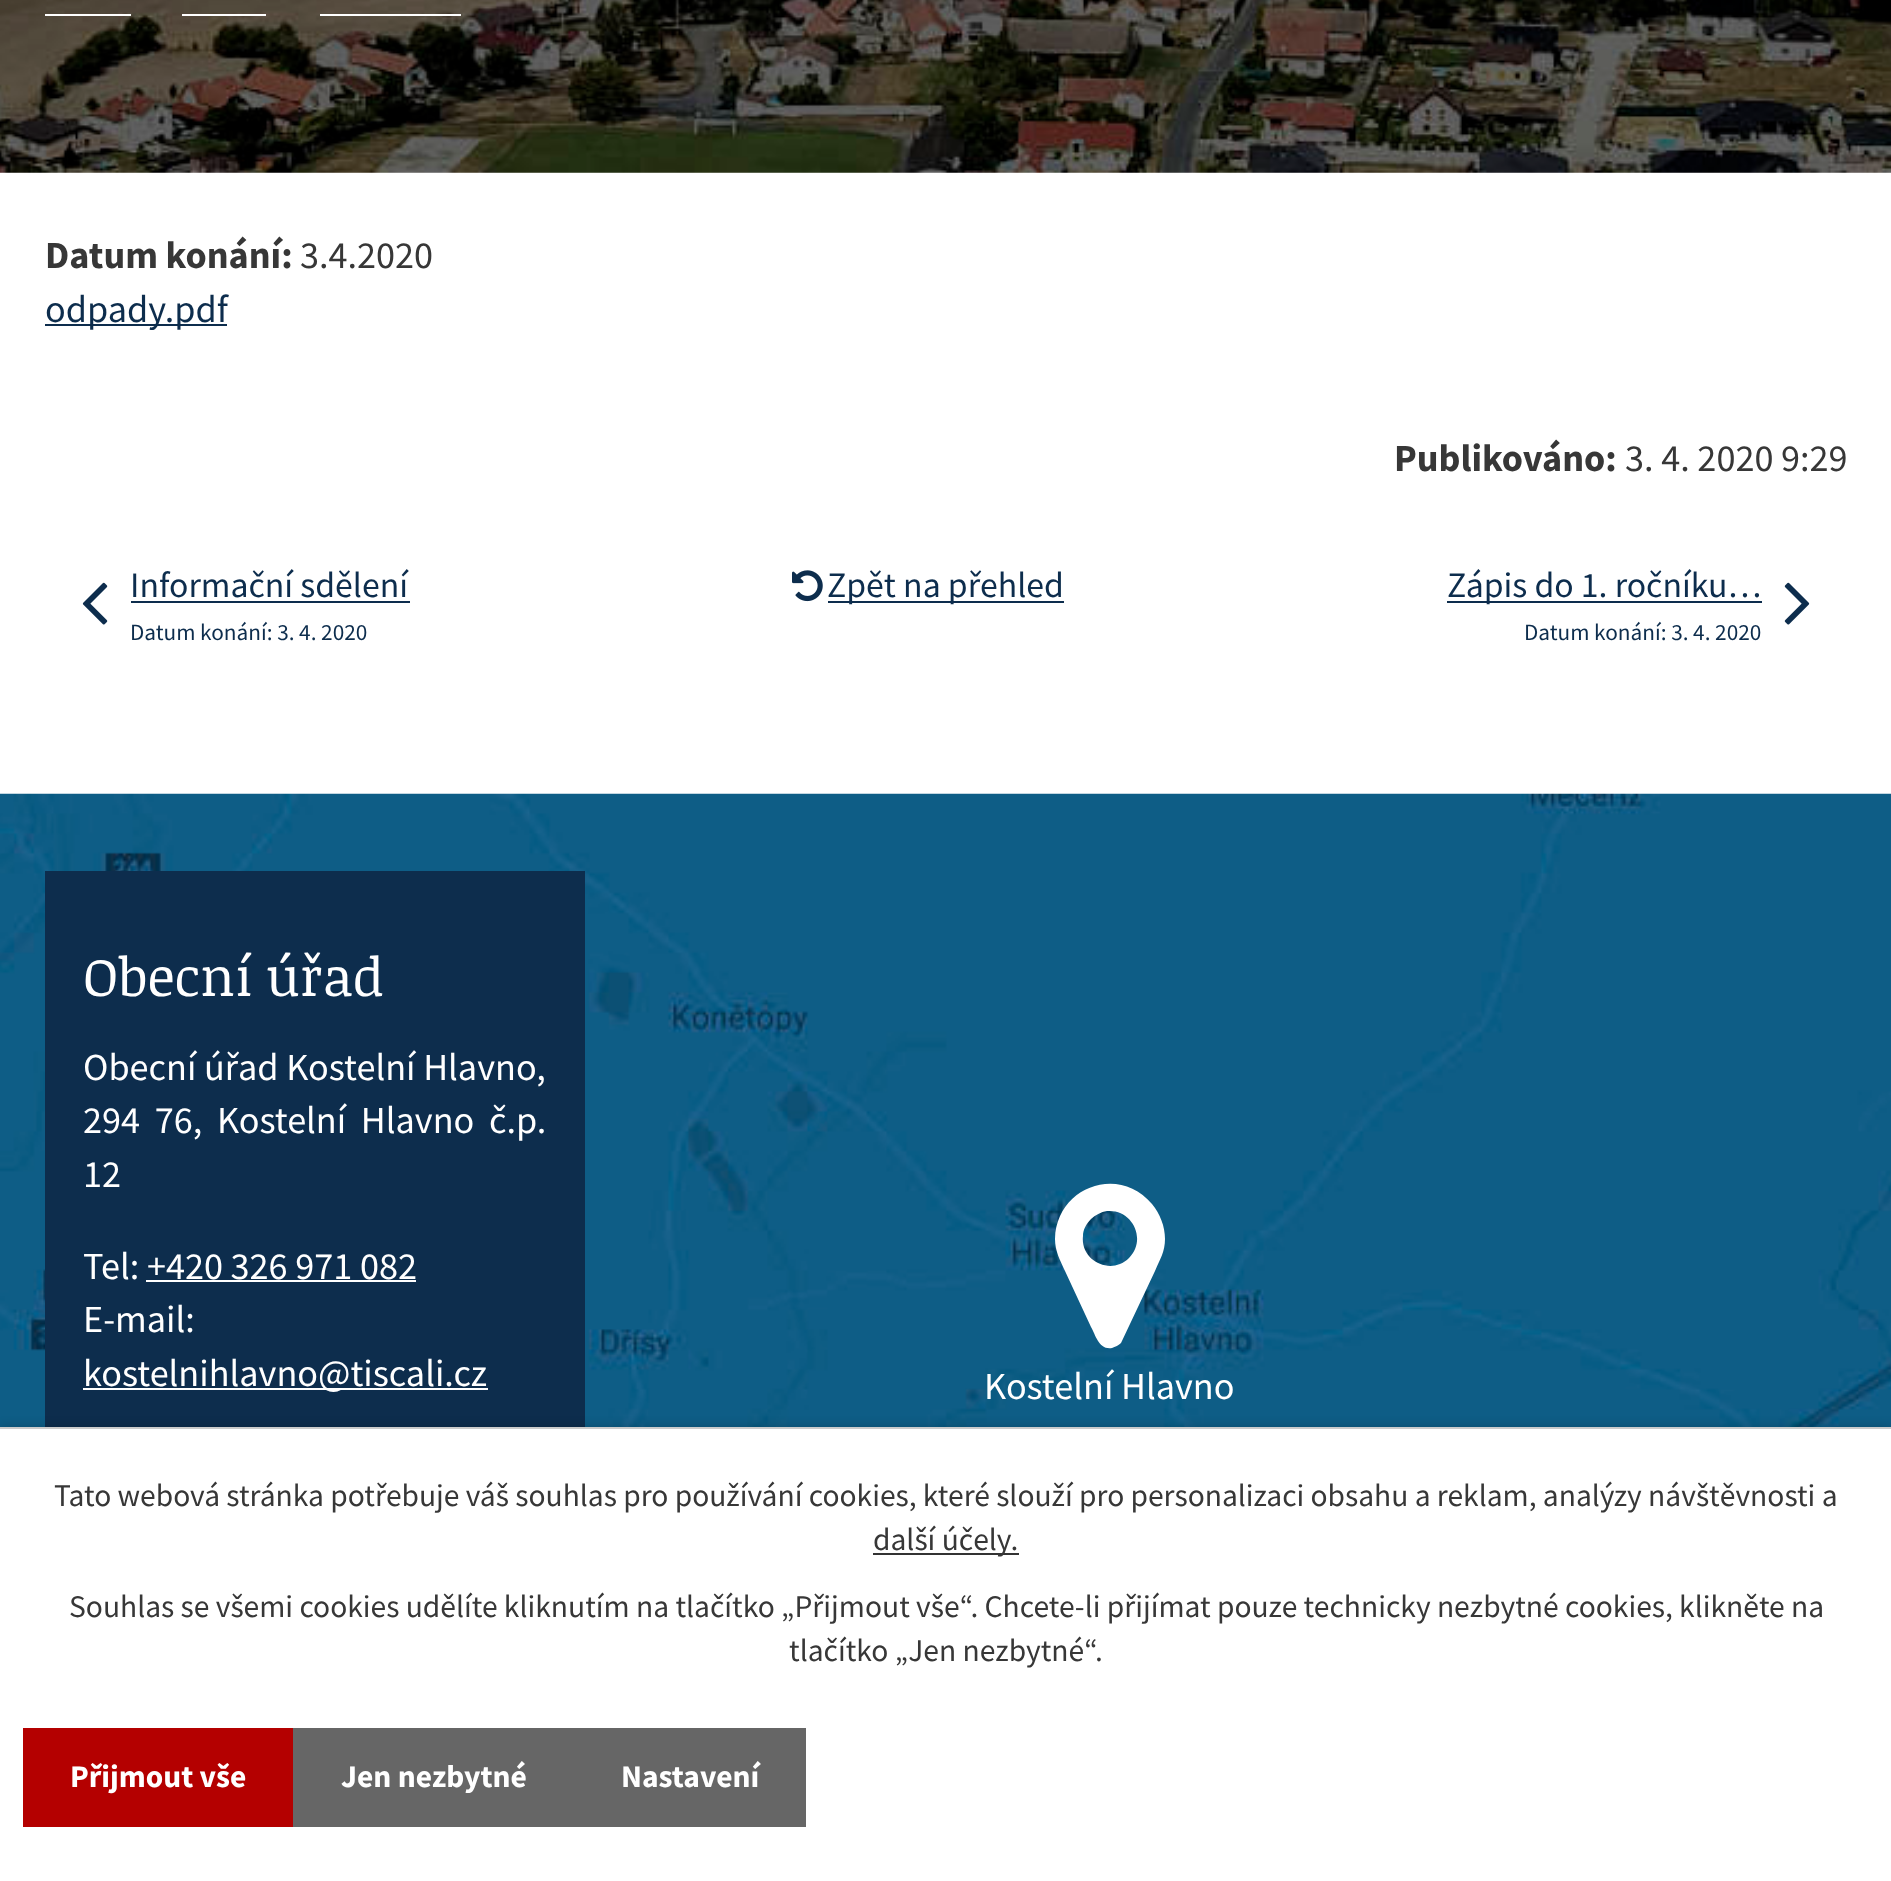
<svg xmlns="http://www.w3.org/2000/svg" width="1891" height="1881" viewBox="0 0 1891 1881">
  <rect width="100%" height="100%" fill="#fff"/>
  <image x="0" y="0" width="1891" height="173" href="img/1.png"/>
  <path d="M45 14h86v2H45z" fill="#fff"/>
  <path d="M182 14h84v2H182z" fill="#fff"/>
  <path d="M320 14h141v2H320z" fill="#fff"/>
  <path d="M45 324h182v2H45z" fill="#0d2d4d"/>
  <image x="82" y="582" width="26" height="43" href="img/2.png"/>
  <path d="M131 601h279v2H131z" fill="#0d2d4d"/>
  <image x="792" y="570" width="31" height="32" href="img/3.png"/>
  <path d="M828 601h236v2H828z" fill="#0d2d4d"/>
  <path d="M1447 601h315v2H1447z" fill="#0d2d4d"/>
  <image x="1784" y="582" width="26" height="43" href="img/4.png"/>
  <image x="0" y="793" width="1891" height="634" href="img/5.png"/>
  <path d="M45 871h540v556H45z" fill="#0d2d4d"/>
  <path d="M146 1280h270v2H146z" fill="#fff"/>
  <path d="M83 1388h405v2H83z" fill="#fff"/>
  <path d="M1129 1258C1147 1240 1133 1209 1107 1211C1101 1212 1095 1215 1091 1219C1086 1224 1083 1230 1083 1236C1080 1261 1111 1276 1129 1258ZM1165 1239C1165 1252 1160 1259 1155 1271L1121 1343C1119 1345 1115 1347 1112 1348C1099 1350 1096 1336 1091 1327L1065 1271C1060 1260 1055 1251 1055 1239C1056 1187 1119 1164 1152 1204C1160 1214 1165 1226 1165 1239Z" fill="#fff"/>
  <path d="M0 1427h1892v454H0z" fill="#00000033" filter="blur(5.5px)"/>
  <path d="M0 1429h1891v452H0z" fill="#fff"/>
  <path d="M0 1427h1891v2H0z" fill="#ccc"/>
  <path d="M873 1553h146v2H873z" fill="#333"/>
  <path d="M23 1728h270v99H23z" fill="#b40000"/>
  <path d="M293 1728h513v99H293z" fill="#666"/>
  <text x="45" y="268" font-family="Source Sans Pro" font-size="38.25" font-weight="bold" fill="#373737">Datum konání:</text>
  <text x="300" y="268" font-family="Source Sans Pro" font-size="38.25" fill="#373737">3.4.2020</text>
  <text x="45" y="322" font-family="Source Sans Pro" font-size="38.25" fill="#0d2d4d">odpady.pdf</text>
  <text x="1394" y="471" font-family="Source Sans Pro" font-size="38.25" font-weight="bold" fill="#373737">Publikováno:</text>
  <text x="1625" y="471" font-family="Source Sans Pro" font-size="38.25" fill="#373737">3. 4. 2020 9:29</text>
  <text x="130" y="597" font-family="Source Sans Pro" font-size="35.75" fill="#0d2d4d">Informační sdělení</text>
  <text x="130" y="640" font-family="Source Sans Pro" font-size="23.25" fill="#0d2d4d">Datum konání: 3. 4. 2020</text>
  <g font-family="Source Sans Pro" font-size="35.75" fill="#0d2d4d">
    <text x="827" y="597">Zpět na přehled</text>
    <text x="1447" y="597">Zápis do 1. ročníku…</text>
  </g>
  <text x="1524" y="640" font-family="Source Sans Pro" font-size="23.25" fill="#0d2d4d">Datum konání: 3. 4. 2020</text>
  <text x="83" y="996" font-family="Noticia Text" font-size="53.5" fill="#fff">Obecní úřad</text>
  <g font-family="Source Sans Pro" font-size="38.25" fill="#fff">
    <text x="83" y="1080">Obecní úřad Kostelní Hlavno,</text>
    <text x="83" y="1133" word-spacing="7">294 76, Kostelní Hlavno č.p.</text>
    <text x="83" y="1187">12</text>
    <text x="83" y="1279">Tel: +420 326 971 082</text>
    <text x="83" y="1332">E-mail:</text>
    <text x="83" y="1386">kostelnihlavno@tiscali.cz</text>
    <text x="984" y="1399">Kostelní Hlavno</text>
  </g>
  <g font-family="Source Sans Pro" font-size="31.5" fill="#373737">
    <text x="54" y="1506">Tato webová stránka potřebuje váš souhlas pro používání cookies, které slouží pro personalizaci obsahu a reklam, analýzy návštěvnosti a</text>
    <text x="873" y="1550">další účely.</text>
    <text x="69" y="1617">Souhlas se všemi cookies udělíte kliknutím na tlačítko „Přijmout vše“. Chcete-li přijímat pouze technicky nezbytné cookies, klikněte na</text>
    <text x="789" y="1661">tlačítko „Jen nezbytné“.</text>
  </g>
  <g font-family="Source Sans Pro" font-size="31.5" font-weight="bold" fill="#fff">
    <text x="70" y="1787">Přijmout vše</text>
    <text x="341" y="1787">Jen nezbytné</text>
    <text x="621" y="1787">Nastavení</text>
  </g>
</svg>
